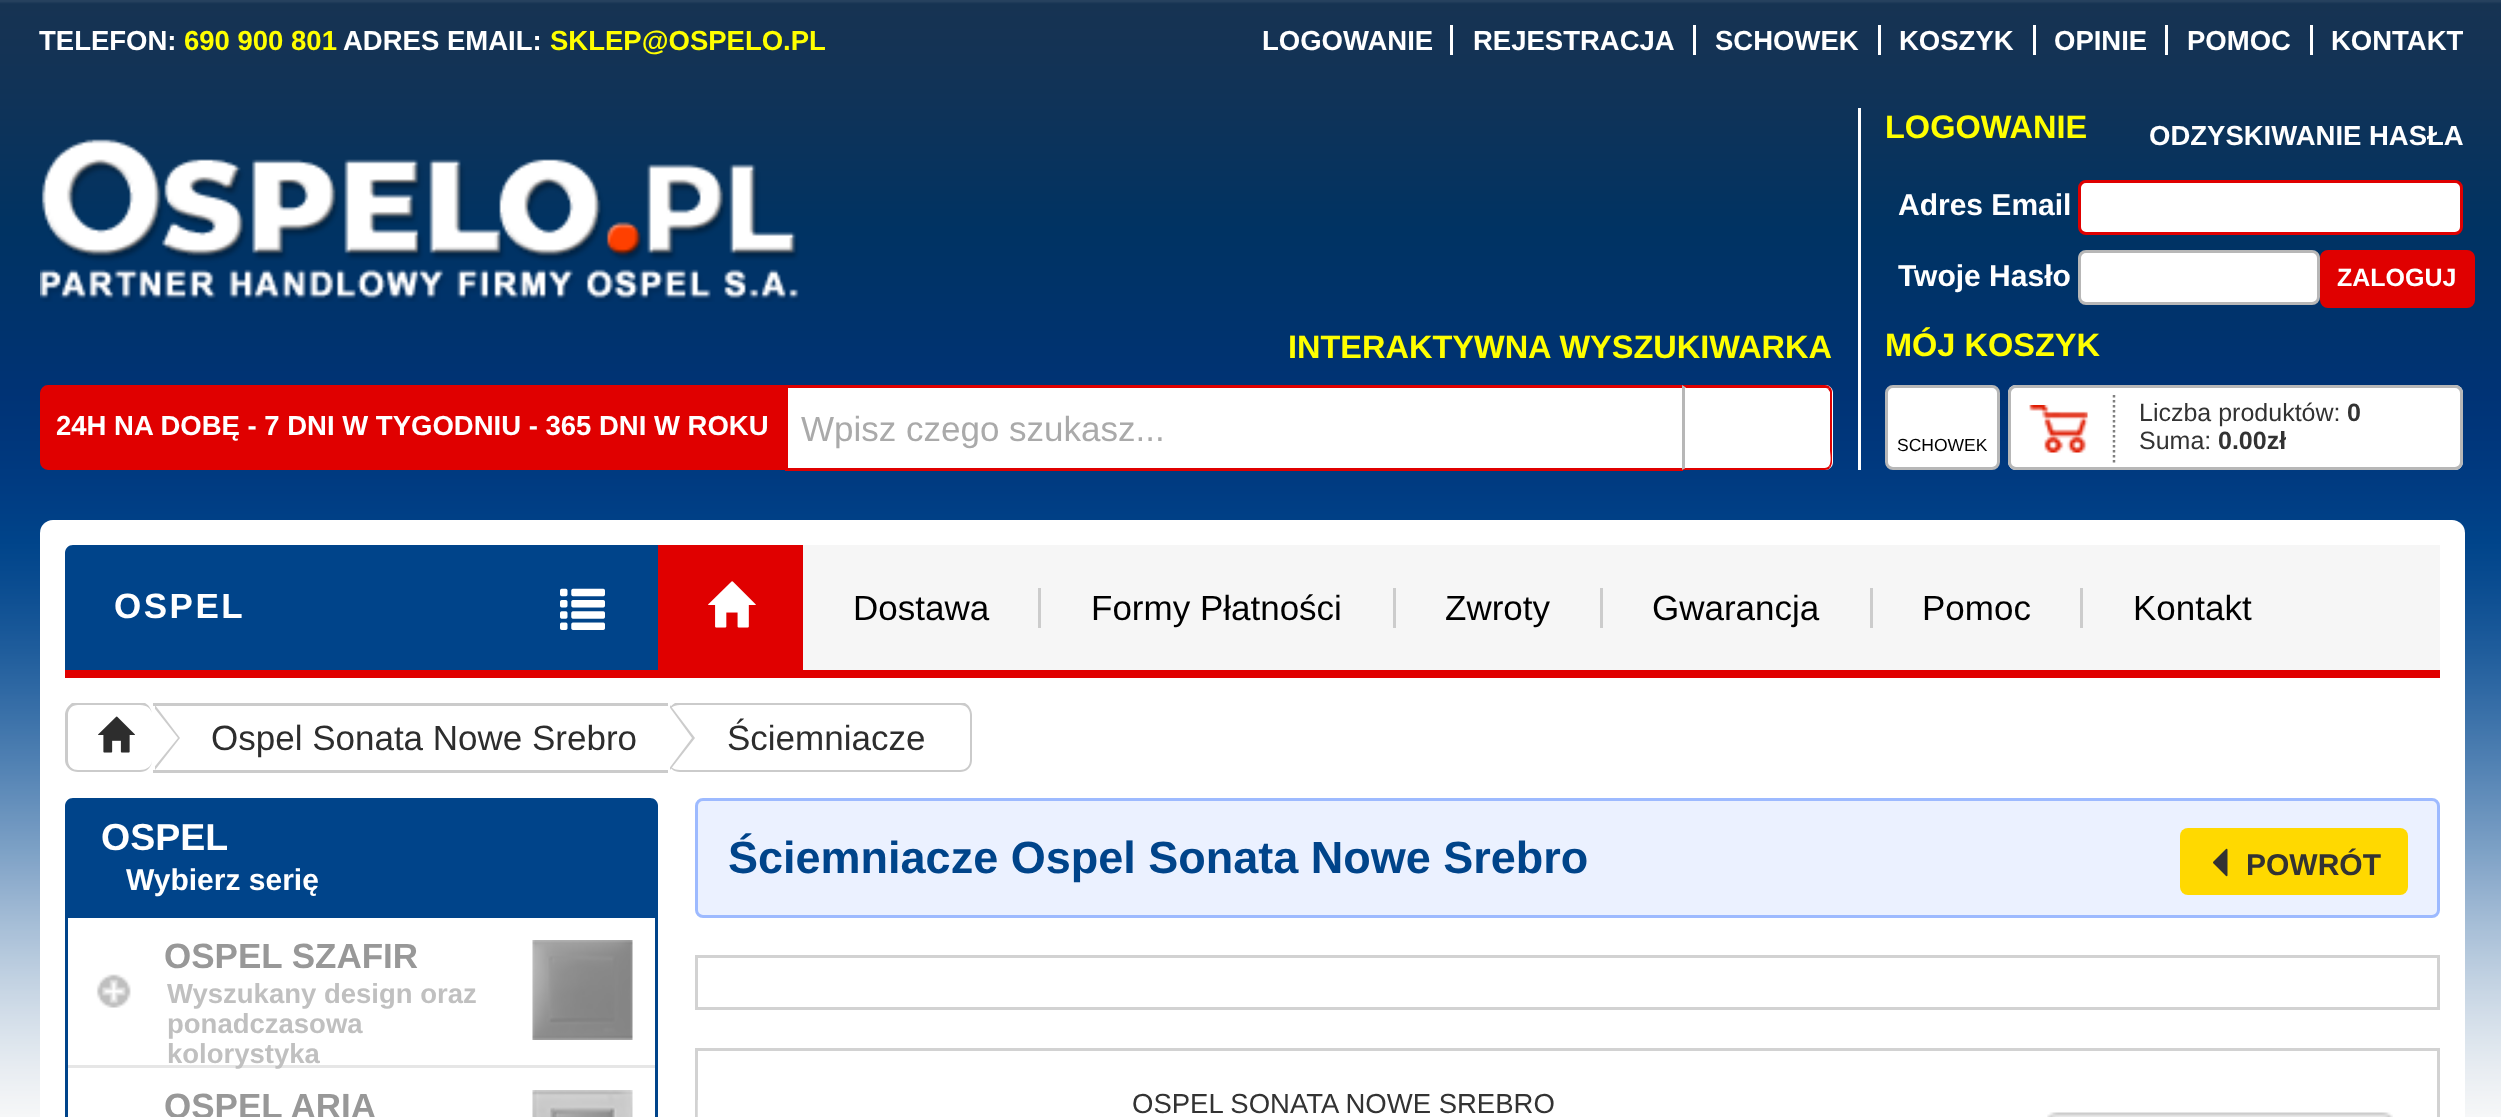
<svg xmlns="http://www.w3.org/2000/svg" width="2501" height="1117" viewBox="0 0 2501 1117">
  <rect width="100%" height="100%" fill="#fff"/>
  <image x="0" y="0" width="2501" height="1117" href="img/1.png"/>
  <path d="M1450 25h3v30H1450z" fill="#fff"/>
  <path d="M1693 25h3v30H1693z" fill="#fff"/>
  <path d="M1878 25h3v30H1878z" fill="#fff"/>
  <path d="M2033 25h3v30H2033z" fill="#fff"/>
  <path d="M2165 25h3v30H2165z" fill="#fff"/>
  <path d="M2310 25h3v30H2310z" fill="#fff"/>
  <image x="40" y="139" width="760" height="163" href="img/2.png"/>
  <path d="M48 386.5H783.5V468.5H48C44.5 468.5 41.5 465.5 41.5 462V393C41.5 389.5 44.5 386.5 48 386.5Z" fill="#e00000" stroke="#e00000" stroke-width="3"/>
  <path d="M788 388h894v80H788z" fill="#fff"/>
  <path d="M785 385h898v3H785z" fill="#e00000"/>
  <path d="M785 468h898v3H785z" fill="#e00000"/>
  <path d="M785 385h3v85H785z" fill="#e00000"/>
  <path d="M1683 385H1825C1829.5 385 1833 388.5 1833 393V462C1833 466.5 1829.5 470 1825 470H1683Z" fill="#fff"/>
  <path d="M1682 385L1686 388H1825C1826 388 1828 388 1828 389L1830 387C1829 386 1827 385 1825 385Z" fill="#e00000"/>
  <path d="M1830 387C1831 388 1832 390 1832 392V462C1832 464 1831 466 1830 468L1829 466C1832 462 1830 453 1830 450V392L1828 389Z" fill="#e00000"/>
  <path d="M1682 470H1825C1827 470 1829 469 1830 468L1829 466C1828 467 1826 468 1825 468H1685Z" fill="#e00000"/>
  <path d="M1685 388H1686L1682 385V470L1685 468Z" fill="#b7b7b7"/>
  <path d="M1858 108h3v362H1858z" fill="#fff"/>
  <rect x="2079.5" y="181.5" width="382" height="52" rx="6.5" fill="#fff" stroke="#e00000" stroke-width="3"/>
  <rect x="2079.5" y="251.5" width="239" height="52" rx="6.5" fill="#fff" stroke="#b7b7b7" stroke-width="3"/>
  <rect x="2321.5" y="251.5" width="152" height="55" rx="6.5" fill="#e00000" stroke="#e00000" stroke-width="3"/>
  <rect x="1886.5" y="386.5" width="112" height="82" rx="6.5" fill="#fff" stroke="#b7b7b7" stroke-width="3"/>
  <rect x="2008" y="385" width="455" height="85" rx="8" fill="#fff"/>
  <image x="2029" y="405" width="59" height="48" href="img/3.png"/>
  <rect x="2009.5" y="386.5" width="452" height="82" rx="6.5" fill="none" stroke="#b7b7b7" stroke-width="3"/>
  <path d="M2114 395V462.5" fill="none" stroke="#808080" stroke-width="2.5" stroke-dasharray="2.5 2.5"/>
  <rect x="40" y="520" width="2425" height="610" rx="13" fill="#fff"/>
  <path d="M65 670h2375v8H65z" fill="#e00000"/>
  <path d="M73 545H658V670H65V553C65 548.5 68.5 545 73 545Z" fill="#00448a"/>
  <image x="560" y="588" width="45" height="42" href="img/4.png"/>
  <path d="M803 545h1637v125H803z" fill="#f6f6f6"/>
  <path d="M658 545h145v125H658z" fill="#e00000"/>
  <image x="708" y="581" width="48" height="47" href="img/5.png"/>
  <path d="M1038 588h3v40H1038z" fill="#ccc"/>
  <path d="M1393 588h3v40H1393z" fill="#ccc"/>
  <path d="M1600 588h3v40H1600z" fill="#ccc"/>
  <path d="M1870 588h3v40H1870z" fill="#ccc"/>
  <path d="M2080 588h3v40H2080z" fill="#ccc"/>
  <path d="M78 705H140C147 705 152 709 152 715C152 710 149 705 145 703H72C68 706 65 710 65 715V760C65 767 71 772 78 772H140C147 772 152 767 152 760C152 766 147 770 140 770H78C72 770 68 766 68 760V715C68 709 72 705 78 705Z" fill="#cbcbcb"/>
  <path d="M153 703h515v3H153z" fill="#cbcbcb"/>
  <path d="M155 770V705L180 738Z" fill="#ccc"/>
  <path d="M152 770V705L178 738Z" fill="#fff"/>
  <image x="98" y="716" width="37" height="37" href="img/6.png"/>
  <path d="M153 770h515v3H153z" fill="#cbcbcb"/>
  <path d="M680 705H960C966 705 970 709 970 715V760C970 766 966 770 960 770H680C673 770 668 766 668 760C668 767 673 772 680 772H960C967 772 972 767 972 760V715C972 710 969 705 965 703H675C671 705 668 710 668 715C668 709 673 705 680 705Z" fill="#cbcbcb"/>
  <path d="M670 770V705L695 738Z" fill="#ccc"/>
  <path d="M668 770V705L692 738Z" fill="#fff"/>
  <path d="M73 798H650C654.5 798 658 801.5 658 806V918H65V806C65 801.5 68.5 798 73 798Z" fill="#00448a"/>
  <path d="M655 918h3v199H655z" fill="#00448a"/>
  <path d="M65 918h3v199H65z" fill="#00448a"/>
  <path d="M68 1065h587v3H68z" fill="#e6e6e6"/>
  <image x="96" y="974" width="35" height="34" href="img/7.png"/>
  <image x="532" y="940" width="101" height="100" href="img/8.png"/>
  <image x="532" y="1090" width="101" height="27" href="img/9.png"/>
  <rect x="696.5" y="799.5" width="1742" height="117" rx="6.5" fill="#ebf1ff" stroke="#9dbaff" stroke-width="3"/>
  <rect x="2180" y="828" width="228" height="67" rx="8" fill="#ffd900"/>
  <image x="2213" y="848" width="15" height="29" href="img/10.png"/>
  <path d="M696.5 956.5h1742v52H696.5z" fill="none" stroke="#d2d2d2" stroke-width="3"/>
  <path d="M696.5 1049.5h1742v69H696.5z" fill="none" stroke="#d2d2d2" stroke-width="3"/>
  <path d="M697 1100h1v17H697z" fill="#ddd"/>
  <image x="2047" y="1112" width="346" height="5" href="img/11.png"/>
  <text x="39" y="50" font-family="Liberation Sans" font-size="27.5" font-weight="bold" fill="#fff">TELEFON:</text>
  <text x="184" y="50" font-family="Liberation Sans" font-size="27.5" font-weight="bold" fill="#ff0">690 900 801</text>
  <text x="343" y="50" font-family="Liberation Sans" font-size="27.5" font-weight="bold" fill="#fff">ADRES EMAIL:</text>
  <text x="550" y="50" font-family="Liberation Sans" font-size="27.5" font-weight="bold" fill="#ff0">SKLEP@OSPELO.PL</text>
  <g font-family="Liberation Sans" font-size="27.5" font-weight="bold" fill="#fff">
    <text x="1262" y="50">LOGOWANIE</text>
    <text x="1473" y="50">REJESTRACJA</text>
    <text x="1715" y="50">SCHOWEK</text>
    <text x="1899" y="50">KOSZYK</text>
    <text x="2054" y="50">OPINIE</text>
    <text x="2187" y="50">POMOC</text>
    <text x="2331" y="50">KONTAKT</text>
  </g>
  <text x="1288" y="358" font-family="Liberation Sans" font-size="32.5" font-weight="bold" fill="#ff0">INTERAKTYWNA WYSZUKIWARKA</text>
  <text x="56" y="435" font-family="Liberation Sans" font-size="27.5" font-weight="bold" fill="#fff">24H NA DOBĘ - 7 DNI W TYGODNIU - 365 DNI W ROKU</text>
  <text x="801" y="441" font-family="Liberation Sans" font-size="35" fill="#aaa">Wpisz czego szukasz...</text>
  <text x="1885" y="138" font-family="Liberation Sans" font-size="32.5" font-weight="bold" fill="#ff0">LOGOWANIE</text>
  <text x="2149" y="145" font-family="Liberation Sans" font-size="27.5" font-weight="bold" fill="#fff">ODZYSKIWANIE HASŁA</text>
  <g font-family="Liberation Sans" font-size="30" font-weight="bold" fill="#fff">
    <text x="1898" y="215">Adres Email</text>
    <text x="1898" y="286">Twoje Hasło</text>
  </g>
  <text x="2337" y="286" font-family="Liberation Sans" font-size="25" font-weight="bold" fill="#fff">ZALOGUJ</text>
  <text x="1885" y="356" font-family="Liberation Sans" font-size="32.5" font-weight="bold" fill="#ff0">MÓJ KOSZYK</text>
  <text x="1897" y="451" font-family="Liberation Sans" font-size="17.5" fill="#000">SCHOWEK</text>
  <text x="2139" y="421" font-family="Liberation Sans" font-size="25" fill="#333">Liczba produktów:</text>
  <text x="2347" y="421" font-family="Liberation Sans" font-size="25" font-weight="bold" fill="#333">0</text>
  <text x="2139" y="449" font-family="Liberation Sans" font-size="25" fill="#333">Suma:</text>
  <text x="2218" y="449" font-family="Liberation Sans" font-size="25" font-weight="bold" fill="#333">0.00zł</text>
  <text x="114" y="618" font-family="Liberation Sans" font-size="35" font-weight="bold" letter-spacing="2.5" fill="#fff">OSPEL</text>
  <g font-family="Liberation Sans" font-size="35" fill="#000">
    <text x="853" y="620">Dostawa</text>
    <text x="1091" y="620">Formy Płatności</text>
    <text x="1445" y="620">Zwroty</text>
    <text x="1652" y="620">Gwarancja</text>
    <text x="1922" y="620">Pomoc</text>
    <text x="2133" y="620">Kontakt</text>
  </g>
  <g font-family="Liberation Sans" font-size="35" fill="#2d2d2d">
    <text x="211" y="750">Ospel Sonata Nowe Srebro</text>
    <text x="727" y="750">Ściemniacze</text>
  </g>
  <text x="101" y="850" font-family="Liberation Sans" font-size="37.5" font-weight="bold" fill="#fff">OSPEL</text>
  <text x="126" y="890" font-family="Liberation Sans" font-size="30" font-weight="bold" fill="#fff">Wybierz serię</text>
  <text x="164" y="968" font-family="Liberation Sans" font-size="35" font-weight="bold" fill="#989898">OSPEL SZAFIR</text>
  <g font-family="Liberation Sans" font-size="27.5" font-weight="bold" fill="#c0c0c0">
    <text x="167" y="1003">Wyszukany design oraz</text>
    <text x="167" y="1033">ponadczasowa</text>
    <text x="167" y="1063">kolorystyka</text>
  </g>
  <text x="164" y="1118" font-family="Liberation Sans" font-size="35" font-weight="bold" fill="#989898">OSPEL ARIA</text>
  <text x="728" y="873" font-family="Liberation Sans" font-size="45" font-weight="bold" fill="#00448a">Ściemniacze Ospel Sonata Nowe Srebro</text>
  <text x="2246" y="875" font-family="Liberation Sans" font-size="30" font-weight="bold" fill="#333">POWRÓT</text>
  <text x="1132" y="1113" font-family="Liberation Sans" font-size="27.5" fill="#333">OSPEL SONATA NOWE SREBRO</text>
</svg>
